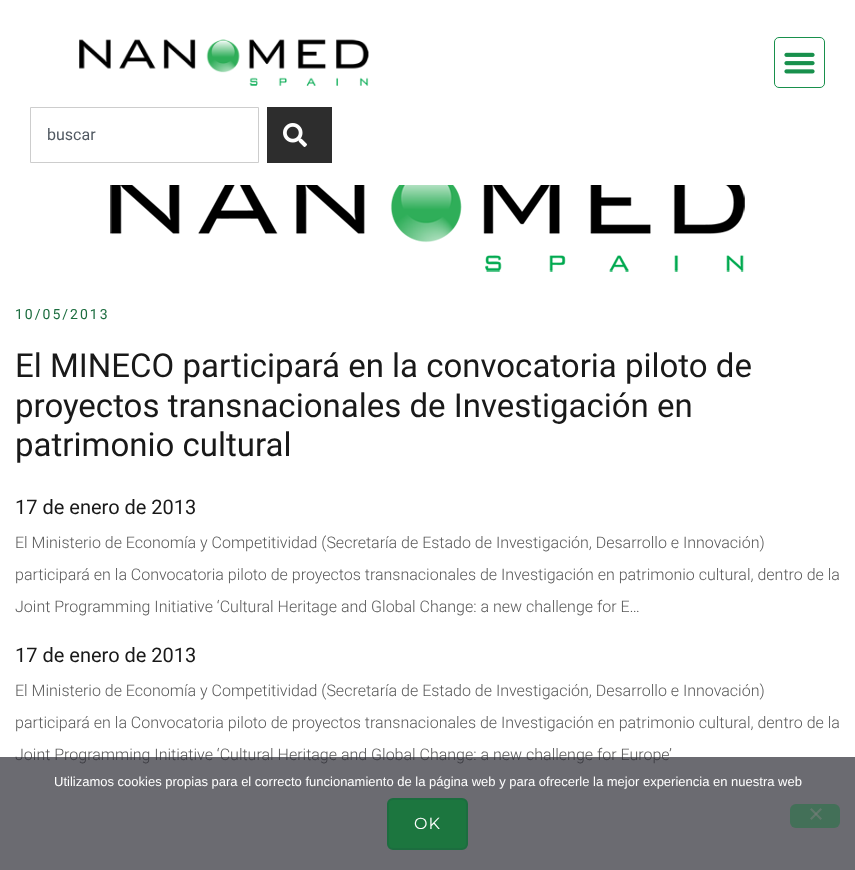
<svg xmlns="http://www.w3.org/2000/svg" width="855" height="870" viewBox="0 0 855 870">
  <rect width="100%" height="100%" fill="#fff"/>
  <image x="79" y="39" width="290" height="47" href="img/1.png"/>
  <rect x="774.5" y="37.5" width="50" height="50" rx="4.5" fill="none" stroke="#18904c"/>
  <image x="784" y="52" width="31" height="22" href="img/2.png"/>
  <path d="M30.5 107.5h228v55H30.5z" fill="none" stroke="#cdcdcd"/>
  <path d="M267 107h65v56H267z" fill="#2d2d2d"/>
  <image x="283" y="123" width="24" height="24" href="img/3.png"/>
  <image x="110" y="185" width="635" height="87" href="img/4.png"/>
  <text x="47" y="140" font-family="Roboto" font-size="16" fill="#515962">buscar</text>
  <text x="15" y="319" font-family="Roboto" font-size="14" letter-spacing="2" fill="#1c6d3f">10/05/2013</text>
  <g font-family="Roboto" font-size="33" fill="#191919">
    <text x="15" y="377">El MINECO participará en la convocatoria piloto de</text>
    <text x="15" y="417">proyectos transnacionales de Investigación en</text>
    <text x="15" y="456">patrimonio cultural</text>
  </g>
  <text x="15" y="514" font-family="Roboto" font-size="20" fill="#191919">17 de enero de 2013</text>
  <g font-family="Roboto" font-size="16" font-weight="300" fill="#595959">
    <text x="15" y="548">El Ministerio de Economía y Competitividad (Secretaría de Estado de Investigación, Desarrollo e Innovación)</text>
    <text x="15" y="580">participará en la Convocatoria piloto de proyectos transnacionales de Investigación en patrimonio cultural, dentro de la</text>
    <text x="15" y="612">Joint Programming Initiative ‘Cultural Heritage and Global Change: a new challenge for E…</text>
  </g>
  <text x="15" y="662" font-family="Roboto" font-size="20" fill="#191919">17 de enero de 2013</text>
  <g font-family="Roboto" font-size="16" font-weight="300" fill="#595959">
    <text x="15" y="696">El Ministerio de Economía y Competitividad (Secretaría de Estado de Investigación, Desarrollo e Innovación)</text>
    <text x="15" y="728">participará en la Convocatoria piloto de proyectos transnacionales de Investigación en patrimonio cultural, dentro de la</text>
    <text x="15" y="760">Joint Programming Initiative ‘Cultural Heritage and Global Change: a new challenge for Europe’</text>
  </g>
  <path d="M0 757h855v113H0z" fill="#32323ab8"/>
  <text x="54" y="786" font-family="Liberation Sans" font-size="13" fill="#fff">Utilizamos cookies propias para el correcto funcionamiento de la página web y para ofrecerle la mejor experiencia en nuestra web</text>
  <rect x="388" y="799" width="79" height="50" rx="5" fill="#1c763f" stroke="#1c6d3f" stroke-width="2"/>
  <text x="414" y="829" font-family="Montserrat" font-size="16" letter-spacing="1" fill="#fff">OK</text>
  <rect x="790" y="804" width="50" height="24" rx="6" fill="#1c763f80"/>
  <path d="M820.5 808L822 809.5L811.5 820L810 818.5Z" fill="#80808080"/>
  <path d="M810 809.5L811.5 808L822 818.5L820.5 820Z" fill="#80808080"/>
</svg>
